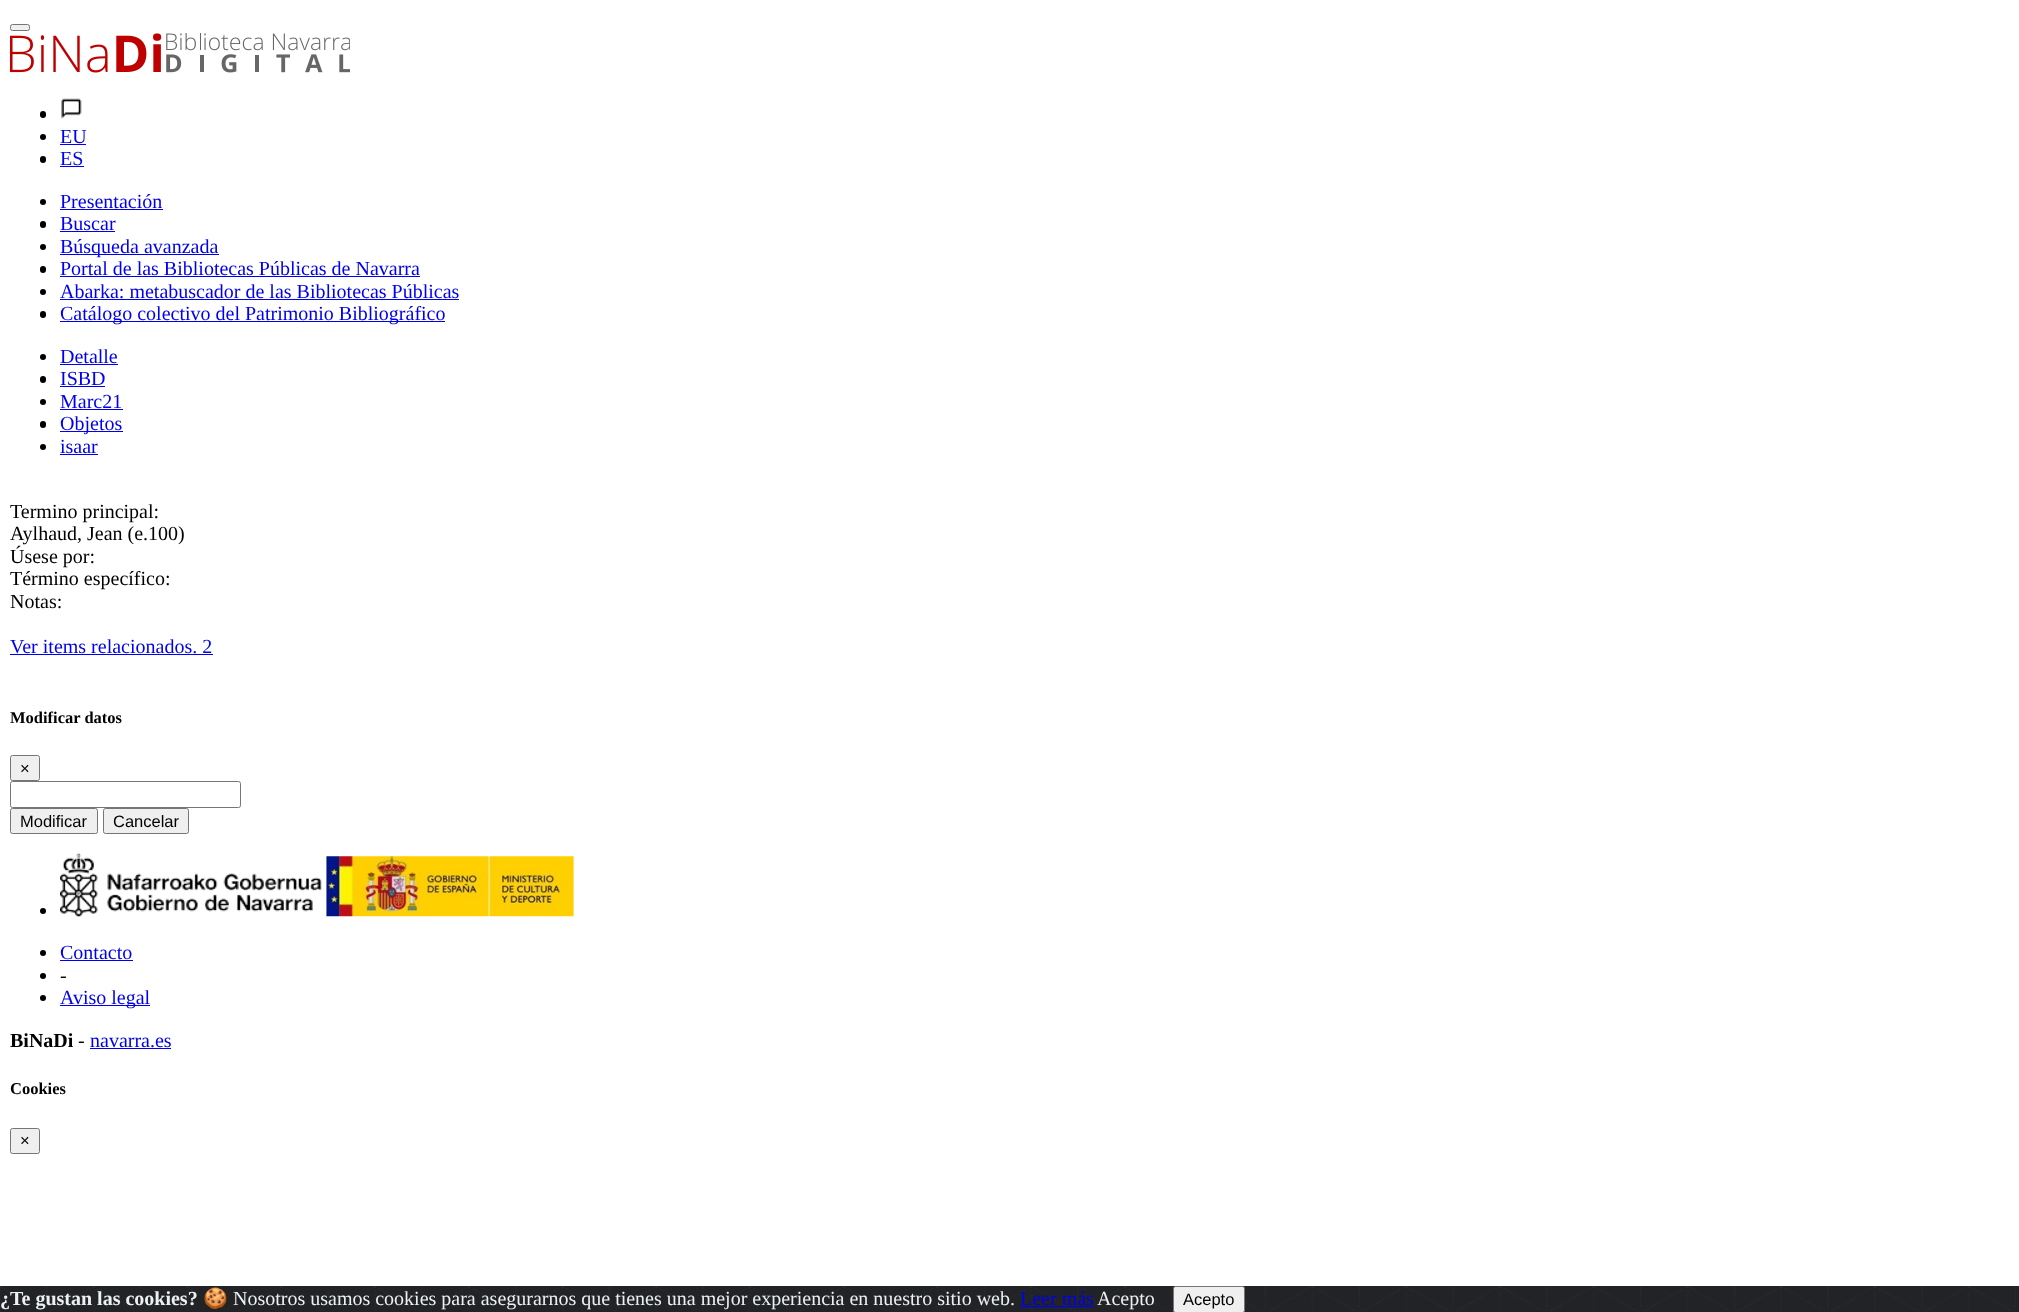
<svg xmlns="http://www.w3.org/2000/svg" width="2019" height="1312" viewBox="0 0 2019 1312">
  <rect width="100%" height="100%" fill="#fff"/>
  <rect x="10.5" y="24.5" width="19" height="6" rx="2" fill="#efefef" stroke="#767676"/>
  <image x="10" y="33" width="340" height="40" href="img/1.png"/>
  <rect x="40" y="111" width="6" height="7" rx="3" fill="#000"/>
  <image x="61" y="98" width="21" height="21" href="img/2.png"/>
  <circle cx="43" cy="137" r="3" fill="#000"/>
  <path d="M60 144h26v1H60z" fill="#00e"/>
  <rect x="40" y="156" width="6" height="7" rx="3" fill="#000"/>
  <path d="M60 166h24v1H60z" fill="#00e"/>
  <circle cx="43" cy="202" r="3" fill="#000"/>
  <path d="M60 209h103v1H60z" fill="#00e"/>
  <rect x="40" y="221" width="6" height="7" rx="3" fill="#000"/>
  <path d="M60 231h55v1H60z" fill="#00e"/>
  <circle cx="43" cy="247" r="3" fill="#000"/>
  <path d="M60 254h159v1H60z" fill="#00e"/>
  <rect x="40" y="266" width="6" height="7" rx="3" fill="#000"/>
  <path d="M60 276h360v1H60z" fill="#00e"/>
  <circle cx="43" cy="292" r="3" fill="#000"/>
  <path d="M60 299h399v1H60z" fill="#00e"/>
  <rect x="40" y="311" width="6" height="7" rx="3" fill="#000"/>
  <path d="M60 321h385v1H60z" fill="#00e"/>
  <circle cx="43" cy="357" r="3" fill="#000"/>
  <path d="M60 364h58v1H60z" fill="#00e"/>
  <rect x="40" y="376" width="6" height="7" rx="3" fill="#000"/>
  <path d="M60 386h45v1H60z" fill="#00e"/>
  <circle cx="43" cy="402" r="3" fill="#000"/>
  <path d="M60 409h63v1H60z" fill="#00e"/>
  <rect x="40" y="421" width="6" height="7" rx="3" fill="#000"/>
  <path d="M60 431h63v1H60z" fill="#00e"/>
  <circle cx="43" cy="447" r="3" fill="#000"/>
  <path d="M60 454h38v1H60z" fill="#00e"/>
  <path d="M10 654h203v1H10z" fill="#00e"/>
  <rect x="10.5" y="755.5" width="29" height="25" rx="2" fill="#efefef" stroke="#767676"/>
  <rect x="10.5" y="781.5" width="230" height="26" rx="2" fill="none" stroke="#767676"/>
  <rect x="10.5" y="808.5" width="87" height="25" rx="2" fill="#efefef" stroke="#767676"/>
  <rect x="103.5" y="808.5" width="85" height="25" rx="2" fill="#efefef" stroke="#767676"/>
  <circle cx="43" cy="911" r="3" fill="#000"/>
  <image x="60" y="853" width="262" height="64" href="img/3.png"/>
  <image x="326" y="856" width="248" height="61" href="img/4.png"/>
  <circle cx="43" cy="953" r="3" fill="#000"/>
  <path d="M60 960h73v1H60z" fill="#00e"/>
  <circle cx="43" cy="976" r="3" fill="#000"/>
  <circle cx="43" cy="998" r="3" fill="#000"/>
  <path d="M60 1005h90v1H60z" fill="#00e"/>
  <path d="M90 1048h81v1H90z" fill="#00e"/>
  <rect x="10.5" y="1128.5" width="29" height="25" rx="2" fill="#efefef" stroke="#767676"/>
  <path d="M0 1286h2019v26H0z" fill="#212327"/>
  <image x="0" y="1286" width="2016" height="25" href="img/5.png"/>
  <path d="M1020 1306h74v1H1020z" fill="#00e"/>
  <rect x="1173.5" y="1286.5" width="71" height="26" rx="2" fill="#efefef" stroke="#767676"/>
  <g font-family="Liberation Serif" font-size="20" fill="#00e">
    <text x="60" y="143">EU</text>
    <text x="60" y="165">ES</text>
    <text x="60" y="208">Presentación</text>
    <text x="60" y="230">Buscar</text>
    <text x="60" y="253">Búsqueda avanzada</text>
    <text x="60" y="275">Portal de las Bibliotecas Públicas de Navarra</text>
    <text x="60" y="298">Abarka: metabuscador de las Bibliotecas Públicas</text>
    <text x="60" y="320">Catálogo colectivo del Patrimonio Bibliográfico</text>
    <text x="60" y="363">Detalle</text>
    <text x="60" y="385">ISBD</text>
    <text x="60" y="408">Marc21</text>
    <text x="60" y="430">Objetos</text>
    <text x="60" y="453">isaar</text>
  </g>
  <g font-family="Liberation Serif" font-size="20" fill="#000">
    <text x="10" y="518">Termino principal:</text>
    <text x="10" y="540">Aylhaud, Jean (e.100)</text>
    <text x="10" y="563">Úsese por:</text>
    <text x="10" y="585">Término específico:</text>
    <text x="10" y="608">Notas:</text>
  </g>
  <text x="10" y="653" font-family="Liberation Serif" font-size="20" fill="#00e">Ver items relacionados. 2</text>
  <text x="10" y="723" font-family="Liberation Serif" font-size="16.5" font-weight="bold" fill="#000">Modificar datos</text>
  <g font-family="Liberation Sans" font-size="16.5" fill="#000">
    <text x="20" y="774">×</text>
    <text x="20" y="827">Modificar</text>
    <text x="113" y="827">Cancelar</text>
  </g>
  <text x="60" y="959" font-family="Liberation Serif" font-size="20" fill="#00e">Contacto</text>
  <text x="60" y="982" font-family="Liberation Serif" font-size="20" fill="#000">-</text>
  <text x="60" y="1004" font-family="Liberation Serif" font-size="20" fill="#00e">Aviso legal</text>
  <text x="10" y="1047" font-family="Liberation Serif" font-size="20" font-weight="bold" fill="#000">BiNaDi</text>
  <text x="78" y="1047" font-family="Liberation Serif" font-size="20" fill="#000">-</text>
  <text x="90" y="1047" font-family="Liberation Serif" font-size="20" fill="#00e">navarra.es</text>
  <text x="10" y="1094" font-family="Liberation Serif" font-size="16.5" font-weight="bold" fill="#000">Cookies</text>
  <text x="20" y="1146" font-family="Liberation Sans" font-size="16.5" fill="#000">×</text>
  <text x="0" y="1305" font-family="Liberation Serif" font-size="20" font-weight="bold" fill="#ecf0f1">¿Te gustan las cookies?</text>
  <text x="203" y="1305" font-family="Noto Color Emoji" font-size="20" fill="#ecf0f1">🍪</text>
  <text x="233" y="1305" font-family="Liberation Serif" font-size="20" fill="#ecf0f1">Nosotros usamos cookies para asegurarnos que tienes una mejor experiencia en nuestro sitio web.</text>
  <text x="1020" y="1305" font-family="Liberation Serif" font-size="20" fill="#00e">Leer más</text>
  <text x="1097" y="1305" font-family="Liberation Serif" font-size="20" fill="#ecf0f1">Acepto</text>
  <text x="1183" y="1305" font-family="Liberation Sans" font-size="16.5" fill="#000">Acepto</text>
</svg>
